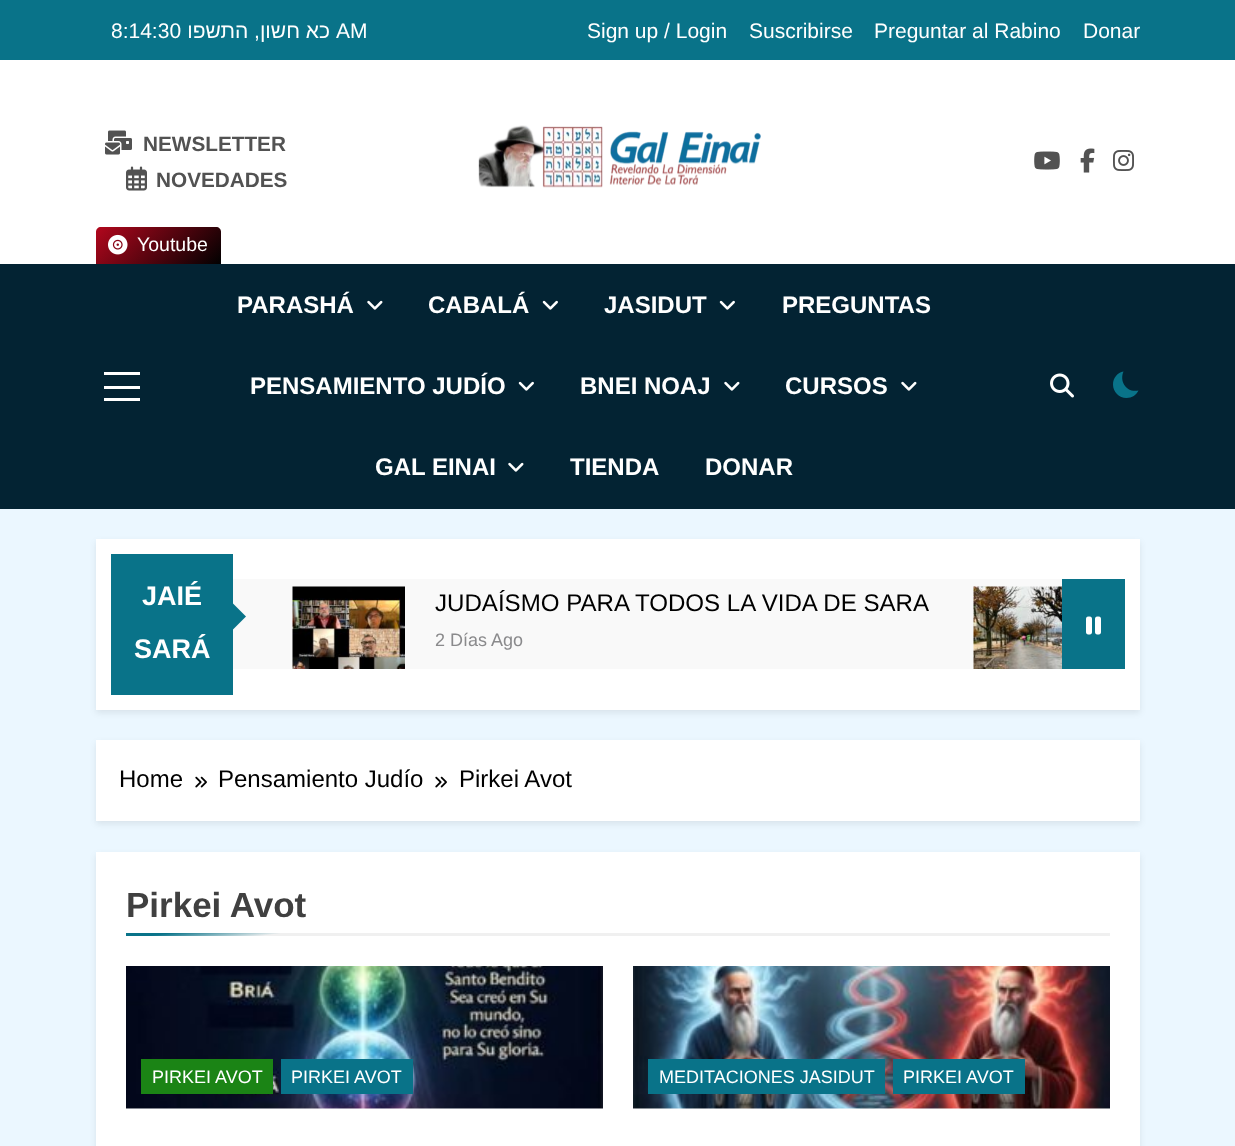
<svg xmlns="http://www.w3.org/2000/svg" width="1235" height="1146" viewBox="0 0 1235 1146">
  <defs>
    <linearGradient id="g1" gradientUnits="userSpaceOnUse" x1="118" y1="205" x2="199" y2="286"><stop offset="0" stop-color="#b2071d"/><stop offset="1" stop-color="#010101"/></linearGradient>
    <linearGradient id="g2" gradientUnits="userSpaceOnUse" x1="215" y1="927" x2="217" y2="942"><stop offset="0" stop-color="#097389"/><stop offset="1" stop-color="#f0f0f0"/></linearGradient>
  </defs>
  <rect width="100%" height="100%" fill="#ebf7ff"/>
  <path d="M0 0h1235v60H0z" fill="#097389"/>
  <path d="M0 60h1235v204H0z" fill="#fff"/>
  <image x="105" y="130" width="27" height="25" href="img/1.png"/>
  <image x="126" y="166" width="21" height="25" href="img/2.png"/>
  <image x="478" y="125" width="283" height="63" href="img/3.png"/>
  <image x="1034" y="151" width="26" height="19" href="img/4.png"/>
  <image x="1080" y="148" width="15" height="25" href="img/5.png"/>
  <image x="1113" y="150" width="21" height="21" href="img/6.png"/>
  <path d="M0 264h1235v245H0z" fill="#032333"/>
  <path d="M101 227H216C219 227 221 229 221 232V264H96V232C96 229 98 227 101 227Z" fill="url(#g1)"/>
  <image x="108" y="234" width="20" height="21" href="img/7.png"/>
  <path d="M104 372h36v3H104z" fill="#fff"/>
  <path d="M104 386h36v3H104z" fill="#fff"/>
  <path d="M104 398h36v3H104z" fill="#fff"/>
  <image x="367" y="300" width="16" height="10" href="img/8.png"/>
  <image x="542" y="300" width="16" height="10" href="img/9.png"/>
  <image x="719" y="300" width="16" height="10" href="img/9.png"/>
  <image x="518" y="381" width="16" height="10" href="img/9.png"/>
  <image x="724" y="381" width="16" height="10" href="img/8.png"/>
  <image x="901" y="381" width="16" height="10" href="img/8.png"/>
  <image x="508" y="462" width="16" height="10" href="img/8.png"/>
  <image x="1050" y="373" width="24" height="25" href="img/10.png"/>
  <path d="M1138.5 390.5C1127 393 1119 382 1123.5 371.5C1117.5 372.5 1113 378 1113 384.5C1113 392 1119 398 1126.5 398C1132 398 1136.5 395 1138.5 390.5Z" fill="#097389"/>
  <path d="M96 542h1044v171H96z" fill="#00000014" filter="blur(3px)"/>
  <path d="M96 539h1044v171H96z" fill="#fff"/>
  <path d="M111 554h122v141H111z" fill="#097389"/>
  <path d="M233 579h829v90H233z" fill="#f9f9f9"/>
  <path d="M231 631.5V601.5L246 616.5Z" fill="#097389"/>
  <image x="292" y="586" width="113" height="83" href="img/11.png"/>
  <image x="973" y="586" width="89" height="83" href="img/12.png"/>
  <path d="M1062 579h63v90H1062z" fill="#097389"/>
  <image x="1086" y="616" width="15" height="19" href="img/13.png"/>
  <path d="M96 743h1044v81H96z" fill="#00000014" filter="blur(3px)"/>
  <path d="M96 740h1044v81H96z" fill="#fff"/>
  <image x="195" y="776" width="12" height="12" href="img/14.png"/>
  <image x="435" y="776" width="12" height="12" href="img/14.png"/>
  <path d="M96 855h1044v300H96z" fill="#00000014" filter="blur(3px)"/>
  <path d="M96 852h1044v294H96z" fill="#fff"/>
  <path d="M306 933h804v3H306z" fill="#f0f0f0"/>
  <path d="M126 933h180v3H126z" fill="url(#g2)"/>
  <image x="126" y="966" width="477" height="143" href="img/15.png"/>
  <path d="M141 1059h132v35H141z" fill="#1b8415"/>
  <path d="M281 1059h132v35H281z" fill="#097389"/>
  <image x="633" y="966" width="477" height="143" href="img/16.png"/>
  <path d="M648 1059h237v35H648z" fill="#097389"/>
  <path d="M893 1059h132v35H893z" fill="#097389"/>
  <text x="111" y="38" font-family="Liberation Sans" font-size="21" fill="#fff">8:14:30</text>
  <text x="330" y="38" font-family="Liberation Sans" font-size="21" direction="rtl" fill="#fff">כא חשון, התשפו</text>
  <g font-family="Liberation Sans" font-size="21" fill="#fff">
    <text x="336" y="38">AM</text>
    <text x="587" y="38">Sign up / Login</text>
    <text x="749" y="38">Suscribirse</text>
    <text x="874" y="38">Preguntar al Rabino</text>
    <text x="1083" y="38">Donar</text>
  </g>
  <g font-family="Liberation Sans" font-size="20.75" font-weight="bold" fill="#525252">
    <text x="143" y="151">NEWSLETTER</text>
    <text x="156" y="187">NOVEDADES</text>
  </g>
  <text x="137" y="251" font-family="Liberation Sans" font-size="19.5" fill="#fff">Youtube</text>
  <g font-family="Liberation Sans" font-size="24" font-weight="bold" fill="#fff">
    <text x="237" y="313">PARASHÁ</text>
    <text x="428" y="313">CABALÁ</text>
    <text x="604" y="313">JASIDUT</text>
    <text x="782" y="313">PREGUNTAS</text>
    <text x="250" y="394">PENSAMIENTO JUDÍO</text>
    <text x="580" y="394">BNEI NOAJ</text>
    <text x="785" y="394">CURSOS</text>
    <text x="375" y="475">GAL EINAI</text>
    <text x="570" y="475">TIENDA</text>
    <text x="705" y="475">DONAR</text>
  </g>
  <g font-family="Liberation Sans" font-size="27" font-weight="bold" fill="#fff">
    <text x="142" y="605">JAIÉ</text>
    <text x="134" y="658">SARÁ</text>
  </g>
  <text x="435" y="611" font-family="Liberation Sans" font-size="24.1" fill="#000">JUDAÍSMO PARA TODOS LA VIDA DE SARA</text>
  <text x="435" y="646" font-family="Liberation Sans" font-size="18" fill="#8a8a8c">2 Días Ago</text>
  <g font-family="Liberation Sans" font-size="24" fill="#000">
    <text x="119" y="787">Home</text>
    <text x="218" y="787">Pensamiento Judío</text>
    <text x="459" y="787">Pirkei Avot</text>
  </g>
  <text x="126" y="917" font-family="Liberation Sans" font-size="35" font-weight="bold" fill="#404040">Pirkei Avot</text>
  <g font-family="Liberation Sans" font-size="18" fill="#fff">
    <text x="152" y="1083">PIRKEI AVOT</text>
    <text x="291" y="1083">PIRKEI AVOT</text>
    <text x="659" y="1083">MEDITACIONES JASIDUT</text>
    <text x="903" y="1083">PIRKEI AVOT</text>
  </g>
</svg>
